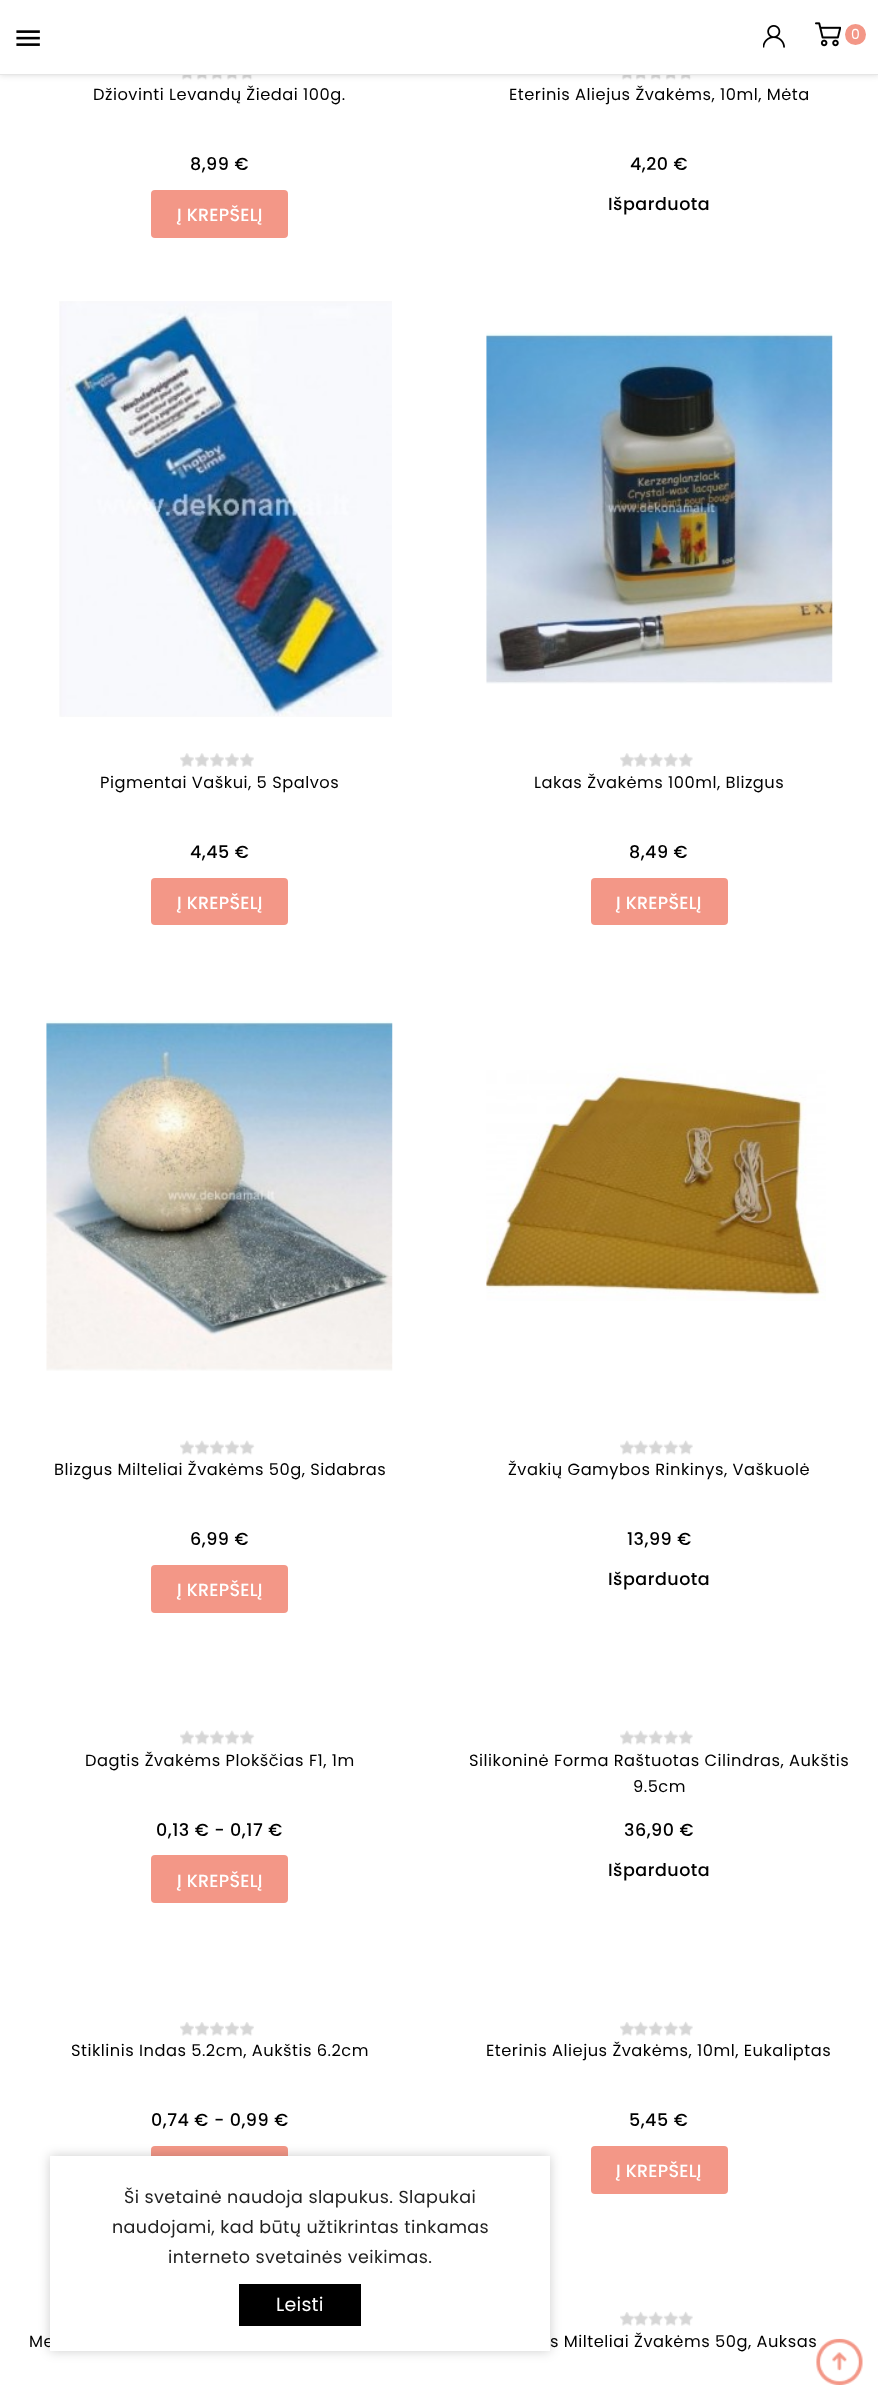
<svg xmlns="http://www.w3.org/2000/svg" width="878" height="2401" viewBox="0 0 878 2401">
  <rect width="100%" height="100%" fill="#fff"/>
  <image x="181" y="75" width="12" height="5" href="img/4.png"/>
  <image x="196" y="75" width="12" height="5" href="img/4.png"/>
  <image x="211" y="75" width="12" height="5" href="img/4.png"/>
  <image x="226" y="75" width="12" height="5" href="img/4.png"/>
  <image x="241" y="75" width="12" height="5" href="img/4.png"/>
  <image x="621" y="75" width="12" height="5" href="img/4.png"/>
  <image x="635" y="75" width="12" height="5" href="img/5.png"/>
  <image x="650" y="75" width="12" height="5" href="img/5.png"/>
  <image x="665" y="75" width="12" height="5" href="img/5.png"/>
  <image x="680" y="75" width="12" height="5" href="img/6.png"/>
  <path d="M0 0h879v75H0z" fill="#00000026" filter="blur(3px)"/>
  <path d="M0 0h878v74H0z" fill="#fff"/>
  <path d="M0 74h878v1H0z" fill="#e6e6e6"/>
  <image x="16" y="30" width="24" height="16" href="img/1.png"/>
  <image x="763" y="25" width="22" height="23" href="img/2.png"/>
  <image x="815" y="22" width="26" height="25" href="img/3.png"/>
  <circle cx="855.5" cy="34.5" r="10.5" fill="#f39787"/>
  <rect x="151" y="190" width="137" height="48" rx="4" fill="#f39787"/>
  <image x="59" y="301" width="333" height="416" href="img/7.png"/>
  <image x="180" y="753" width="14" height="14" href="img/8.png"/>
  <image x="195" y="753" width="14" height="14" href="img/8.png"/>
  <image x="210" y="753" width="14" height="14" href="img/8.png"/>
  <image x="225" y="753" width="14" height="14" href="img/8.png"/>
  <image x="240" y="753" width="14" height="14" href="img/8.png"/>
  <rect x="151" y="878" width="137" height="47" rx="4" fill="#f39787"/>
  <image x="486" y="332" width="347" height="352" href="img/9.png"/>
  <image x="620" y="753" width="14" height="14" href="img/8.png"/>
  <image x="634" y="753" width="14" height="14" href="img/10.png"/>
  <image x="648" y="753" width="15" height="14" href="img/11.png"/>
  <image x="663" y="753" width="15" height="14" href="img/11.png"/>
  <image x="678" y="753" width="15" height="14" href="img/12.png"/>
  <rect x="591" y="878" width="137" height="47" rx="4" fill="#f39787"/>
  <image x="46" y="1020" width="347" height="351" href="img/13.png"/>
  <image x="180" y="1440" width="15" height="15" href="img/14.png"/>
  <image x="195" y="1440" width="15" height="15" href="img/14.png"/>
  <image x="210" y="1440" width="15" height="15" href="img/14.png"/>
  <image x="225" y="1440" width="15" height="15" href="img/14.png"/>
  <image x="240" y="1440" width="15" height="15" href="img/14.png"/>
  <rect x="151" y="1565" width="137" height="48" rx="4" fill="#f39787"/>
  <image x="486" y="1063" width="340" height="238" href="img/15.png"/>
  <image x="620" y="1440" width="15" height="15" href="img/14.png"/>
  <image x="634" y="1440" width="14" height="15" href="img/16.png"/>
  <image x="648" y="1440" width="15" height="15" href="img/17.png"/>
  <image x="663" y="1440" width="15" height="15" href="img/17.png"/>
  <image x="678" y="1440" width="15" height="15" href="img/18.png"/>
  <image x="180" y="1730" width="15" height="15" href="img/14.png"/>
  <image x="195" y="1730" width="15" height="15" href="img/14.png"/>
  <image x="210" y="1730" width="15" height="15" href="img/14.png"/>
  <image x="225" y="1730" width="15" height="15" href="img/14.png"/>
  <image x="240" y="1730" width="15" height="15" href="img/14.png"/>
  <rect x="151" y="1855" width="137" height="48" rx="4" fill="#f39787"/>
  <image x="620" y="1730" width="15" height="15" href="img/14.png"/>
  <image x="634" y="1730" width="14" height="15" href="img/16.png"/>
  <image x="648" y="1730" width="15" height="15" href="img/17.png"/>
  <image x="663" y="1730" width="15" height="15" href="img/17.png"/>
  <image x="678" y="1730" width="15" height="15" href="img/18.png"/>
  <image x="180" y="2022" width="14" height="14" href="img/19.png"/>
  <image x="195" y="2022" width="14" height="14" href="img/19.png"/>
  <image x="210" y="2022" width="14" height="14" href="img/19.png"/>
  <image x="225" y="2022" width="14" height="14" href="img/19.png"/>
  <image x="240" y="2022" width="14" height="14" href="img/19.png"/>
  <rect x="151" y="2146" width="137" height="48" rx="4" fill="#f39787"/>
  <image x="620" y="2022" width="14" height="14" href="img/19.png"/>
  <image x="634" y="2021" width="14" height="15" href="img/20.png"/>
  <image x="648" y="2021" width="15" height="15" href="img/21.png"/>
  <image x="663" y="2021" width="15" height="15" href="img/21.png"/>
  <image x="678" y="2021" width="15" height="15" href="img/22.png"/>
  <rect x="591" y="2146" width="137" height="48" rx="4" fill="#f39787"/>
  <image x="620" y="2312" width="14" height="14" href="img/19.png"/>
  <image x="634" y="2311" width="14" height="15" href="img/20.png"/>
  <image x="648" y="2311" width="15" height="15" href="img/21.png"/>
  <image x="663" y="2311" width="15" height="15" href="img/21.png"/>
  <image x="678" y="2311" width="15" height="15" href="img/22.png"/>
  <path d="M50 2156h500v195H50z" fill="#00000033" filter="blur(6px)"/>
  <text x="851" y="39" font-family="Poppins" font-size="14" letter-spacing="0.5" fill="#fff">0</text>
  <text x="93" y="100" font-family="Poppins" font-size="16.25" letter-spacing="0.5" fill="#000">Džiovinti Levandų Žiedai 100g.</text>
  <text x="190" y="170" font-family="Poppins" font-size="17.5" font-weight="500" letter-spacing="0.5" fill="#000">8,99 €</text>
  <text x="177" y="221" font-family="Poppins" font-size="17.5" font-weight="500" letter-spacing="0.25" fill="#fff">Į KREPŠELĮ</text>
  <text x="509" y="100" font-family="Poppins" font-size="16.25" letter-spacing="0.5" fill="#000">Eterinis Aliejus Žvakėms, 10ml, Mėta</text>
  <g font-family="Poppins" font-size="17.5" font-weight="500" letter-spacing="0.5" fill="#000">
    <text x="630" y="170">4,20 €</text>
    <text x="608" y="210">Išparduota</text>
  </g>
  <text x="100" y="788" font-family="Poppins" font-size="16.25" letter-spacing="0.5" fill="#000">Pigmentai Vaškui, 5 Spalvos</text>
  <text x="190" y="858" font-family="Poppins" font-size="17.5" font-weight="500" letter-spacing="0.5" fill="#000">4,45 €</text>
  <text x="177" y="909" font-family="Poppins" font-size="17.5" font-weight="500" letter-spacing="0.25" fill="#fff">Į KREPŠELĮ</text>
  <text x="534" y="788" font-family="Poppins" font-size="16.25" letter-spacing="0.5" fill="#000">Lakas Žvakėms 100ml, Blizgus</text>
  <text x="629" y="858" font-family="Poppins" font-size="17.5" font-weight="500" letter-spacing="0.5" fill="#000">8,49 €</text>
  <text x="616" y="909" font-family="Poppins" font-size="17.5" font-weight="500" letter-spacing="0.25" fill="#fff">Į KREPŠELĮ</text>
  <text x="54" y="1475" font-family="Poppins" font-size="16.25" letter-spacing="0.5" fill="#000">Blizgus Milteliai Žvakėms 50g, Sidabras</text>
  <text x="190" y="1545" font-family="Poppins" font-size="17.5" font-weight="500" letter-spacing="0.5" fill="#000">6,99 €</text>
  <text x="177" y="1596" font-family="Poppins" font-size="17.5" font-weight="500" letter-spacing="0.25" fill="#fff">Į KREPŠELĮ</text>
  <text x="508" y="1475" font-family="Poppins" font-size="16.25" letter-spacing="0.5" fill="#000">Žvakių Gamybos Rinkinys, Vaškuolė</text>
  <g font-family="Poppins" font-size="17.5" font-weight="500" letter-spacing="0.5" fill="#000">
    <text x="627" y="1545">13,99 €</text>
    <text x="608" y="1585">Išparduota</text>
  </g>
  <text x="85" y="1766" font-family="Poppins" font-size="16.25" letter-spacing="0.5" fill="#000">Dagtis Žvakėms Plokščias F1, 1m</text>
  <text x="156" y="1836" font-family="Poppins" font-size="17.5" font-weight="500" letter-spacing="0.5" fill="#000">0,13 € - 0,17 €</text>
  <text x="177" y="1887" font-family="Poppins" font-size="17.5" font-weight="500" letter-spacing="0.25" fill="#fff">Į KREPŠELĮ</text>
  <g font-family="Poppins" font-size="16.25" letter-spacing="0.5" fill="#000">
    <text x="469" y="1766">Silikoninė Forma Raštuotas Cilindras, Aukštis</text>
    <text x="633" y="1792">9.5cm</text>
  </g>
  <g font-family="Poppins" font-size="17.5" font-weight="500" letter-spacing="0.5" fill="#000">
    <text x="624" y="1836">36,90 €</text>
    <text x="608" y="1876">Išparduota</text>
  </g>
  <text x="71" y="2056" font-family="Poppins" font-size="16.25" letter-spacing="0.5" fill="#000">Stiklinis Indas 5.2cm, Aukštis 6.2cm</text>
  <text x="151" y="2126" font-family="Poppins" font-size="17.5" font-weight="500" letter-spacing="0.5" fill="#000">0,74 € - 0,99 €</text>
  <text x="486" y="2056" font-family="Poppins" font-size="16.25" letter-spacing="0.5" fill="#000">Eterinis Aliejus Žvakėms, 10ml, Eukaliptas</text>
  <text x="629" y="2126" font-family="Poppins" font-size="17.5" font-weight="500" letter-spacing="0.5" fill="#000">5,45 €</text>
  <text x="616" y="2177" font-family="Poppins" font-size="17.5" font-weight="500" letter-spacing="0.25" fill="#fff">Į KREPŠELĮ</text>
  <g font-family="Poppins" font-size="16.25" letter-spacing="0.5" fill="#000">
    <text x="29" y="2347">Me</text>
    <text x="550" y="2347">s Milteliai Žvakėms 50g, Auksas</text>
  </g>
  <path d="M50 2156h500v195H50z" fill="#fff"/>
  <g font-family="Poppins" font-size="17.5" letter-spacing="0.4" fill="#222">
    <text x="124" y="2203">Ši svetainė naudoja slapukus. Slapukai</text>
    <text x="112" y="2233">naudojami, kad būtų užtikrintas tinkamas</text>
    <text x="168" y="2263">interneto svetainės veikimas.</text>
  </g>
  <path d="M239 2284h122v42H239z" fill="#000"/>
  <text x="276" y="2311" font-family="Poppins" font-size="19" letter-spacing="0.25" fill="#fff">Leisti</text>
  <image x="816" y="2338" width="47" height="47" href="img/23.png"/>
</svg>
